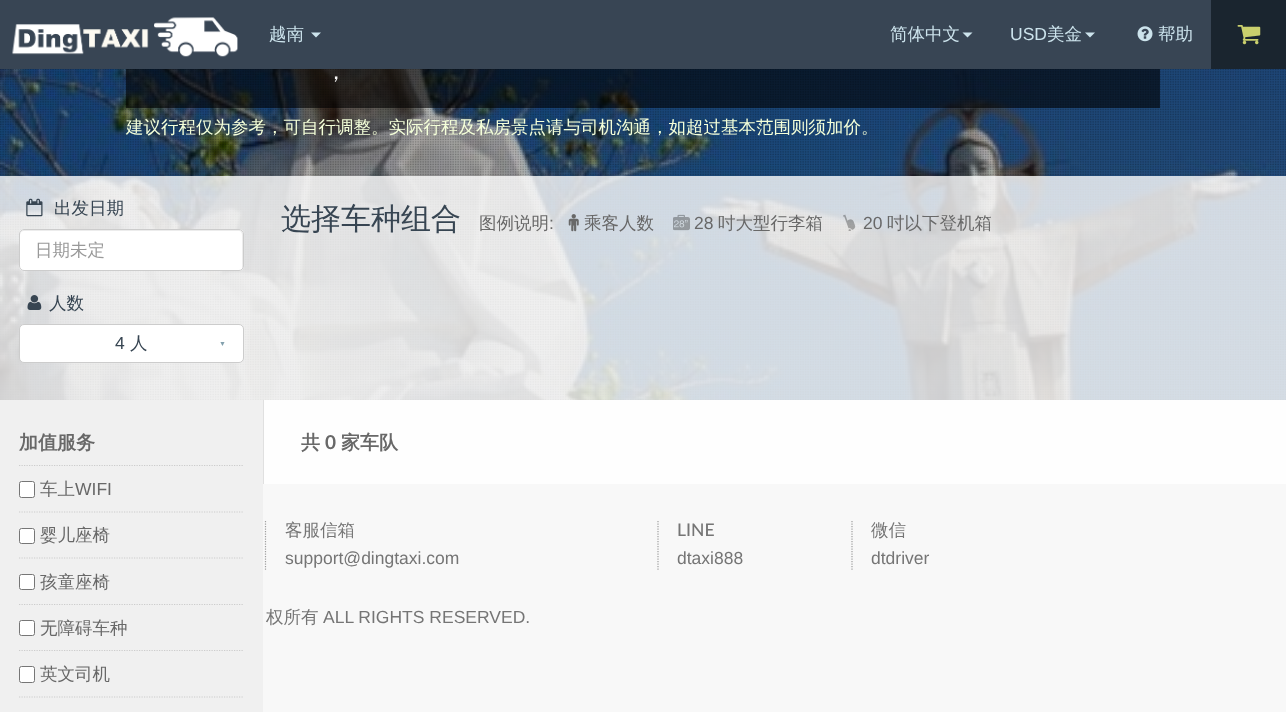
<svg xmlns="http://www.w3.org/2000/svg" width="1286" height="712" viewBox="0 0 1286 712">
  <rect width="100%" height="100%" fill="#f8f8f8"/>
  <path d="M0 0h1211v69H0z" fill="#384554"/>
  <image x="12" y="17" width="226" height="40" href="img/1.png"/>
  <path d="M311 32.5H321L316 37.5Z" fill="#cce3ec"/>
  <path d="M962.5 32.5H972.5L967.5 37.5Z" fill="#cce3ec"/>
  <path d="M1085 32.5H1095L1090 37.5Z" fill="#cce3ec"/>
  <image x="1137" y="26" width="16" height="16" href="img/2.png"/>
  <path d="M1211 0h75v69H1211z" fill="#1a252f"/>
  <image x="1237" y="25" width="24" height="20" href="img/3.png"/>
  <image x="0" y="69" width="1286" height="331" href="img/4.png"/>
  <image x="0" y="69" width="1286" height="331" href="img/5.png"/>
  <path d="M126 69h1034v39H126z" fill="#00000099"/>
  <path d="M0 176h1286v224H0z" fill="#ffffffcc"/>
  <image x="26" y="198" width="17" height="19" href="img/6.png"/>
  <rect x="19" y="229" width="225" height="42" rx="5" fill="#fff"/>
  <path d="M24 231H239C241 231 242 233 242 235V269C243 268 243 267 243 266V234C243 232 241 230 239 230H24C22 230 20 232 20 234V235C20 233 22 231 24 231Z" fill="#ececec"/>
  <rect x="19.5" y="229.5" width="224" height="41" rx="4.5" fill="none" stroke="#ccc"/>
  <image x="27" y="295" width="15" height="15" href="img/7.png"/>
  <rect x="19.5" y="324.5" width="224" height="38" rx="4.5" fill="#fff" stroke="#ccc"/>
  <image x="568" y="214" width="11" height="18" href="img/8.png"/>
  <image x="673" y="214" width="17" height="17" href="img/9.png"/>
  <image x="843" y="214" width="13" height="17" href="img/10.png"/>
  <path d="M0 400h263v312H0z" fill="#f0f0f0"/>
  <path d="M19 465.5H244" fill="none" stroke="#ccc" stroke-width="1.2" stroke-dasharray="1.25 1.25"/>
  <rect x="19.5" y="481.5" width="15" height="16" rx="2" fill="#fff" stroke="#767676"/>
  <path d="M19 512H244" fill="none" stroke="#ccc" stroke-width="1.2" stroke-dasharray="1.25 1.25"/>
  <rect x="19.5" y="528.5" width="15" height="15" rx="2" fill="#fff" stroke="#767676"/>
  <path d="M19 558H244" fill="none" stroke="#ccc" stroke-width="1.2" stroke-dasharray="1.25 1.25"/>
  <rect x="19.5" y="574.5" width="15" height="15" rx="2" fill="#fff" stroke="#767676"/>
  <path d="M19 604.5H244" fill="none" stroke="#ccc" stroke-width="1.2" stroke-dasharray="1.25 1.25"/>
  <rect x="19.5" y="620.5" width="15" height="15" rx="2" fill="#fff" stroke="#767676"/>
  <path d="M19 650.5H244" fill="none" stroke="#ccc" stroke-width="1.2" stroke-dasharray="1.25 1.25"/>
  <rect x="19.5" y="666.5" width="15" height="16" rx="2" fill="#fff" stroke="#767676"/>
  <path d="M19 697H244" fill="none" stroke="#ccc" stroke-width="1.2" stroke-dasharray="1.25 1.25"/>
  <path d="M264 400h1022v84H264z" fill="#fefefe"/>
  <path d="M263 400h1v84H263z" fill="#e0e0e0"/>
  <path d="M265.5 521V570" fill="none" stroke="#9e9e9e" stroke-width="1.2" stroke-dasharray="1.25 1.25"/>
  <path d="M658 521V570" fill="none" stroke="#9e9e9e" stroke-width="1.2" stroke-dasharray="1.25 1.25"/>
  <path d="M852 521V570" fill="none" stroke="#9e9e9e" stroke-width="1.2" stroke-dasharray="1.25 1.25"/>
  <g font-family="WenQuanYi Zen Hei" font-size="17.5" font-weight="500" fill="#cce3ec">
    <text x="269" y="40">越南</text>
    <text x="890" y="40">简体中文</text>
  </g>
  <text x="1010" y="40" font-family="Liberation Sans" font-size="17.5" fill="#cce3ec">USD</text>
  <g font-family="WenQuanYi Zen Hei" font-size="17.5" font-weight="500" fill="#cce3ec">
    <text x="1047" y="40">美金</text>
    <text x="1158" y="40">帮助</text>
  </g>
  <text x="325" y="79" font-family="WenQuanYi Zen Hei" font-size="22" font-weight="500" fill="#f8f8f8">，</text>
  <text x="126" y="133" font-family="WenQuanYi Zen Hei" font-size="17.5" font-weight="500" fill="#f4ffd9">建议行程仅为参考，可自行调整。实际行程及私房景点请与司机沟通，如超过基本范围则须加价。</text>
  <text x="54" y="214" font-family="WenQuanYi Zen Hei" font-size="17.5" font-weight="500" fill="#374552">出发日期</text>
  <text x="35" y="256" font-family="WenQuanYi Zen Hei" font-size="17.5" font-weight="500" fill="#999">日期未定</text>
  <text x="49" y="309" font-family="WenQuanYi Zen Hei" font-size="17.5" font-weight="500" fill="#374552">人数</text>
  <text x="115" y="349" font-family="Liberation Sans" font-size="17.5" fill="#374552">4</text>
  <text x="130" y="349" font-family="WenQuanYi Zen Hei" font-size="17.5" font-weight="500" fill="#374552">人</text>
  <text x="219" y="346" font-family="Liberation Sans" font-size="7" letter-spacing="7" fill="#82a0ad">▼</text>
  <text x="281" y="229" font-family="WenQuanYi Zen Hei" font-size="30" font-weight="500" fill="#374552">选择车种组合</text>
  <text x="479" y="229" font-family="WenQuanYi Zen Hei" font-size="17.5" font-weight="500" fill="#686868">图例说明</text>
  <text x="549" y="229" font-family="Liberation Sans" font-size="17.5" fill="#686868">:</text>
  <text x="584" y="229" font-family="WenQuanYi Zen Hei" font-size="17.5" font-weight="500" fill="#686868">乘客人数</text>
  <text x="694" y="229" font-family="Liberation Sans" font-size="17.5" fill="#686868">28</text>
  <text x="718" y="229" font-family="WenQuanYi Zen Hei" font-size="17.5" font-weight="500" fill="#686868">吋大型行李箱</text>
  <text x="863" y="229" font-family="Liberation Sans" font-size="17.5" fill="#686868">20</text>
  <text x="887" y="229" font-family="WenQuanYi Zen Hei" font-size="17.5" font-weight="500" fill="#686868">吋以下登机箱</text>
  <text x="19" y="449" font-family="WenQuanYi Zen Hei" font-size="19" font-weight="bold" fill="#686868">加值服务</text>
  <text x="40" y="495" font-family="WenQuanYi Zen Hei" font-size="17.5" font-weight="500" fill="#686868">车上</text>
  <text x="75" y="495" font-family="Liberation Sans" font-size="17.5" fill="#686868">WIFI</text>
  <g font-family="WenQuanYi Zen Hei" font-size="17.5" font-weight="500" fill="#686868">
    <text x="40" y="541">婴儿座椅</text>
    <text x="40" y="588">孩童座椅</text>
    <text x="40" y="634">无障碍车种</text>
    <text x="40" y="680">英文司机</text>
  </g>
  <text x="301" y="449" font-family="WenQuanYi Zen Hei" font-size="19" font-weight="bold" fill="#686868">共</text>
  <text x="325" y="449" font-family="Lato" font-size="19" font-weight="bold" fill="#686868">0</text>
  <text x="341" y="449" font-family="WenQuanYi Zen Hei" font-size="19" font-weight="bold" fill="#686868">家车队</text>
  <text x="285" y="536" font-family="WenQuanYi Zen Hei" font-size="17.5" font-weight="500" fill="#757575">客服信箱</text>
  <text x="285" y="564" font-family="Liberation Sans" font-size="17.5" fill="#757575">support@dingtaxi.com</text>
  <text x="677" y="536" font-family="Lato" font-size="17.5" font-weight="500" fill="#757575">LINE</text>
  <text x="677" y="564" font-family="Liberation Sans" font-size="17.5" fill="#757575">dtaxi888</text>
  <text x="871" y="536" font-family="WenQuanYi Zen Hei" font-size="17.5" font-weight="500" fill="#757575">微信</text>
  <text x="871" y="564" font-family="Liberation Sans" font-size="17.5" fill="#757575">dtdriver</text>
  <text x="266" y="623" font-family="WenQuanYi Zen Hei" font-size="17.5" font-weight="500" fill="#757575">权所有</text>
  <text x="323" y="623" font-family="Liberation Sans" font-size="17.5" fill="#757575">ALL RIGHTS RESERVED.</text>
</svg>
